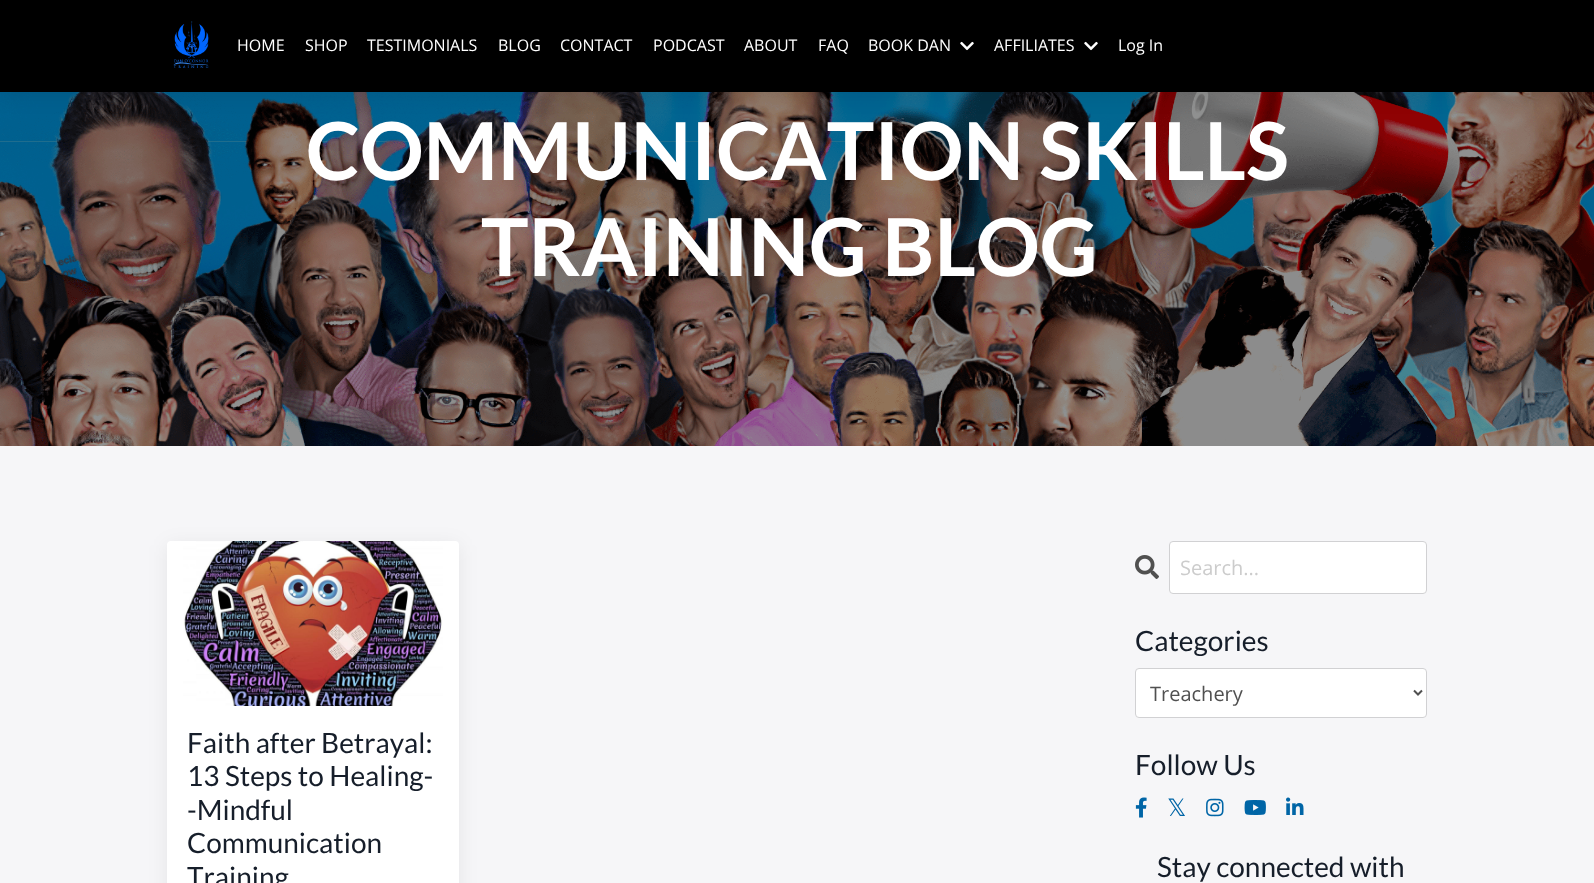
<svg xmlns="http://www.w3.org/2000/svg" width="1594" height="883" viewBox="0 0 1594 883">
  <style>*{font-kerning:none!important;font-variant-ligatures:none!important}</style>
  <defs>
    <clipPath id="clip1"><path d="M1150 679h250v29H1150z"/></clipPath>
  </defs>
  <rect width="100%" height="100%" fill="#fff"/>
  <image x="0" y="92" width="1594" height="354" href="img/3.png"/>
  <path d="M0 4h1594v92H0z" fill="#00000012" filter="blur(10px)"/>
  <path d="M0 0h1594v92H0z" fill="#000"/>
  <image x="173" y="21" width="36" height="47" href="img/1.png"/>
  <image x="960" y="41" width="14" height="10" href="img/2.png"/>
  <image x="1084" y="41" width="14" height="10" href="img/2.png"/>
  <path d="M0 446h1594v437H0z" fill="#f6f6f8"/>
  <rect x="167" y="545" width="292" height="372" rx="4" fill="#00000012" filter="blur(10px)"/>
  <rect x="167" y="541" width="292" height="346" rx="4" fill="#fff"/>
  <image x="183" y="541" width="260" height="165" href="img/4.png"/>
  <image x="1135" y="555" width="24" height="24" href="img/5.png"/>
  <rect x="1169.5" y="541.5" width="257" height="52" rx="3.5" fill="#fff" stroke="#d1d1d3"/>
  <rect x="1135.5" y="668.5" width="291" height="49" rx="3.5" fill="#fff" stroke="#d1d1d3"/>
  <path d="M1414 690.5L1418 694.5L1422 690.5" fill="none" stroke="#505050" stroke-width="2"/>
  <image x="1135" y="797" width="12" height="21" href="img/6.png"/>
  <image x="1206" y="798" width="18" height="19" href="img/7.png"/>
  <image x="1244" y="800" width="22" height="15" href="img/8.png"/>
  <image x="1286" y="797" width="18" height="18" href="img/9.png"/>
  <g font-family="Open Sans" font-size="16" fill="#fff">
    <text x="237" y="51">HOME</text>
    <text x="305" y="51">SHOP</text>
    <text x="367" y="51">TESTIMONIALS</text>
    <text x="498" y="51">BLOG</text>
    <text x="560" y="51">CONTACT</text>
    <text x="653" y="51">PODCAST</text>
    <text x="744" y="51">ABOUT</text>
    <text x="818" y="51">FAQ</text>
    <text x="868" y="51">BOOK DAN</text>
    <text x="994" y="51">AFFILIATES</text>
    <text x="1118" y="51">Log In</text>
  </g>
  <g font-family="Lato" font-size="80" font-weight="bold" fill="#fff">
    <text x="306" y="180">COMMUNICATION SKILLS</text>
    <text x="481" y="276">TRAINING BLOG</text>
  </g>
  <g font-family="Lato" font-size="28" fill="#161e2a">
    <text x="187" y="753">Faith after Betrayal:</text>
    <text x="187" y="786">13 Steps to Healing-</text>
    <text x="187" y="820">-Mindful</text>
    <text x="187" y="853">Communication</text>
    <text x="187" y="887">Training</text>
  </g>
  <text x="1180" y="575" font-family="Open Sans" font-size="20" fill="#ccc">Search...</text>
  <text x="1135" y="651" font-family="Lato" font-size="28" fill="#161e2a">Categories</text>
  <g clip-path="url(#clip1)">
    <text x="1150" y="701" font-family="Open Sans" font-size="20" fill="#505050">Treachery</text>
  </g>
  <text x="1135" y="775" font-family="Lato" font-size="28" fill="#161e2a">Follow Us</text>
  <text x="1167" y="816" font-family="DejaVu Sans" font-size="24" fill="#0065a6">𝕏</text>
  <text x="1157" y="877" font-family="Lato" font-size="28" fill="#161e2a">Stay connected with</text>
</svg>
